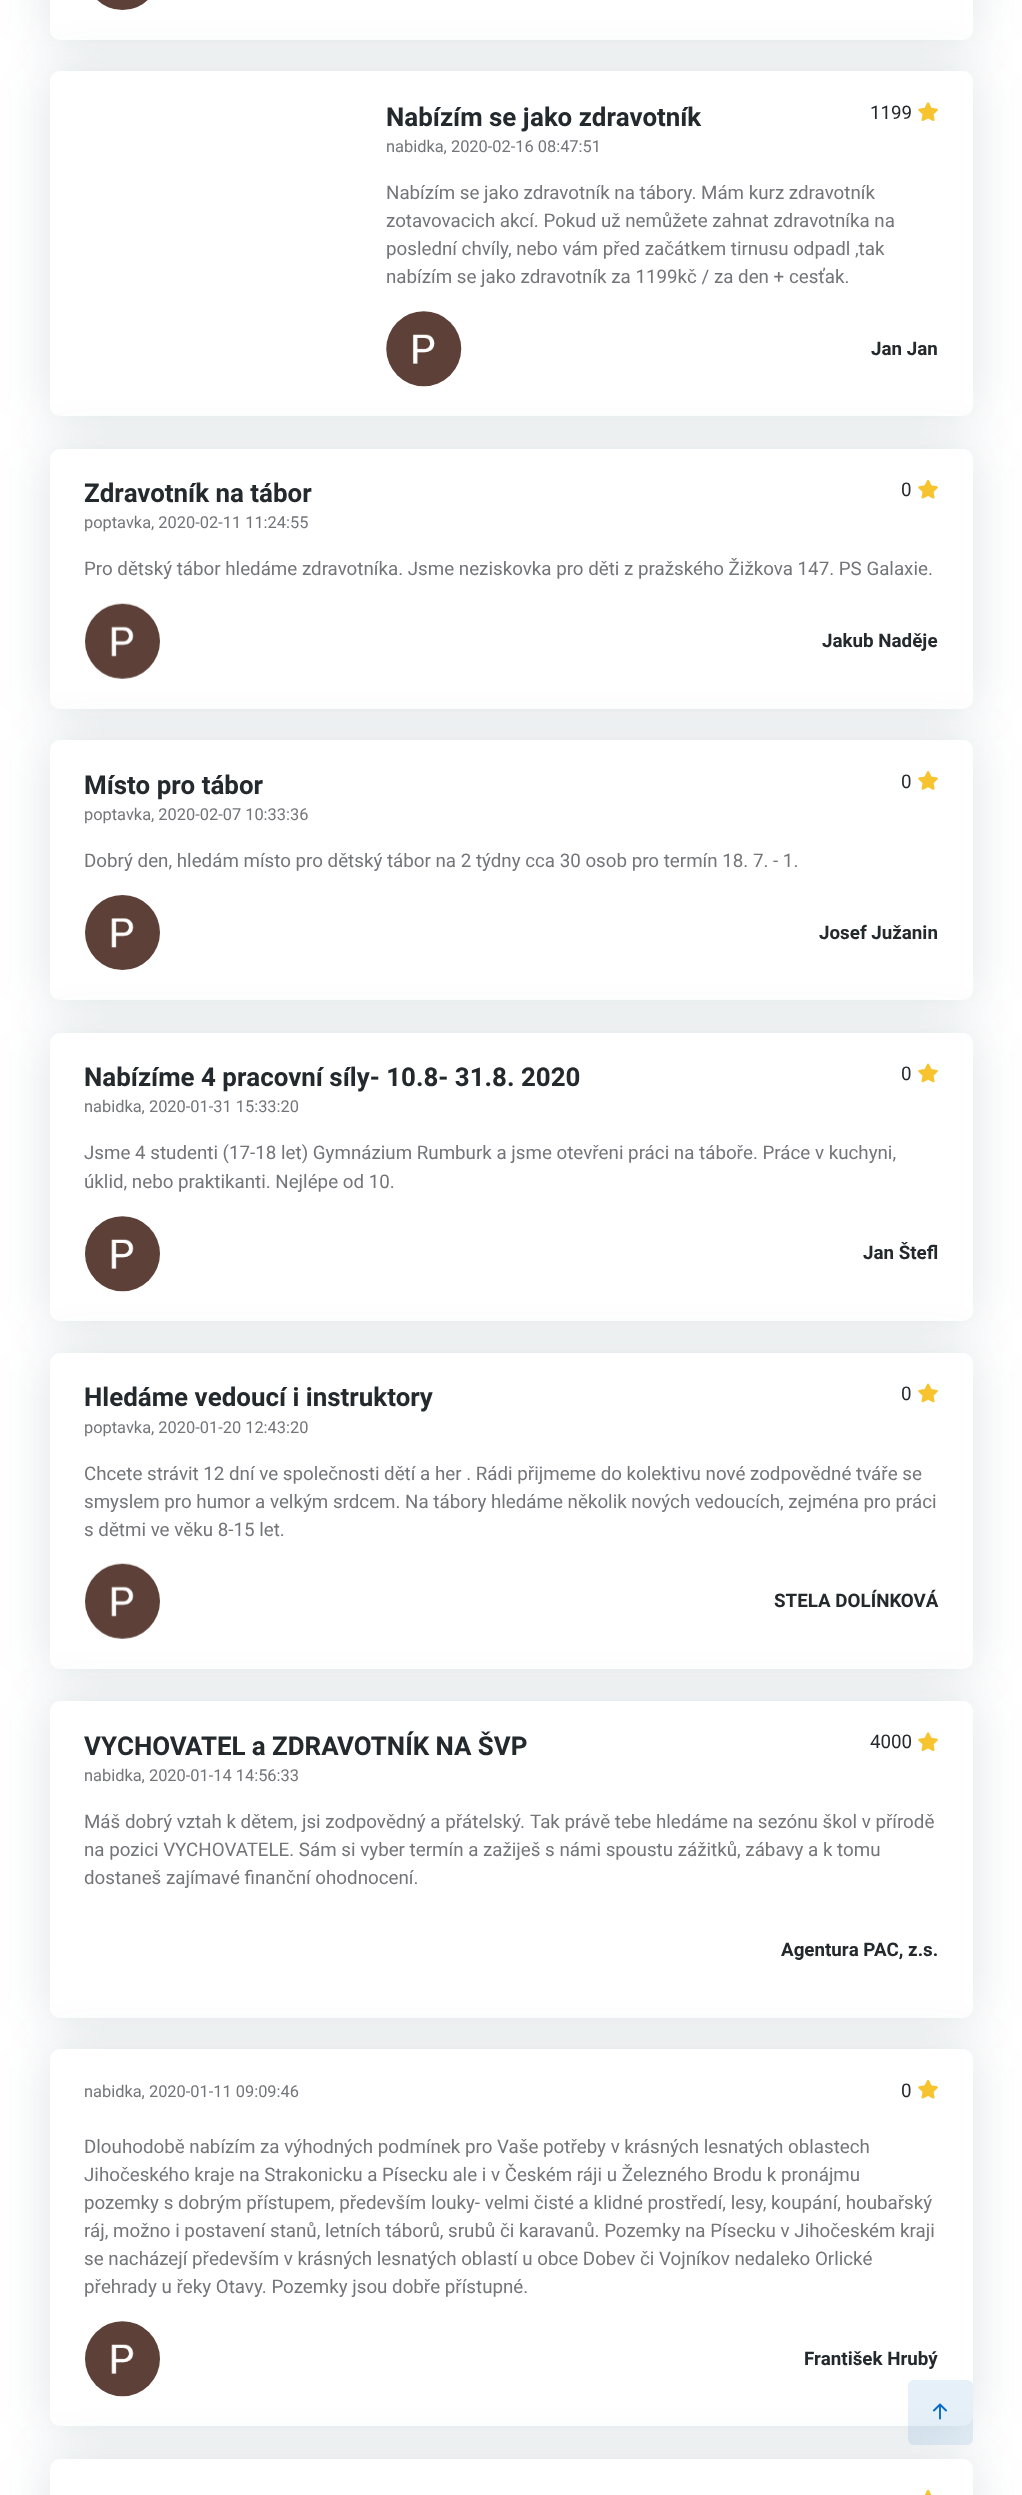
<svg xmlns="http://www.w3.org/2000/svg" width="1022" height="2495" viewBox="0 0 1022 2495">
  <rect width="100%" height="100%" fill="#fff"/>
  <rect x="50" y="-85" width="923" height="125" rx="10" fill="#1d3a5326" filter="blur(25px)"/>
  <rect x="50" y="-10" width="923" height="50" rx="10" fill="#fff"/>
  <image x="97" y="0" width="51" height="10" href="img/1.png"/>
  <rect x="50" y="71" width="923" height="345" rx="10" fill="#1d3a5326" filter="blur(25px)"/>
  <rect x="50" y="71" width="923" height="345" rx="10" fill="#fff"/>
  <image x="918" y="102" width="20" height="20" href="img/2.png"/>
  <image x="386" y="311" width="76" height="76" href="img/3.png"/>
  <rect x="50" y="449" width="923" height="260" rx="10" fill="#1d3a5326" filter="blur(25px)"/>
  <rect x="50" y="449" width="923" height="260" rx="10" fill="#fff"/>
  <image x="918" y="479" width="20" height="20" href="img/4.png"/>
  <image x="85" y="603" width="75" height="76" href="img/5.png"/>
  <rect x="50" y="740" width="923" height="260" rx="10" fill="#1d3a5326" filter="blur(25px)"/>
  <rect x="50" y="740" width="923" height="260" rx="10" fill="#fff"/>
  <image x="918" y="771" width="20" height="19" href="img/6.png"/>
  <image x="85" y="895" width="75" height="75" href="img/7.png"/>
  <rect x="50" y="1033" width="923" height="288" rx="10" fill="#1d3a5326" filter="blur(25px)"/>
  <rect x="50" y="1033" width="923" height="288" rx="10" fill="#fff"/>
  <image x="918" y="1063" width="20" height="20" href="img/8.png"/>
  <image x="85" y="1216" width="75" height="76" href="img/9.png"/>
  <rect x="50" y="1353" width="923" height="316" rx="10" fill="#1d3a5326" filter="blur(25px)"/>
  <rect x="50" y="1353" width="923" height="316" rx="10" fill="#fff"/>
  <image x="918" y="1383" width="20" height="20" href="img/8.png"/>
  <image x="85" y="1563" width="75" height="76" href="img/5.png"/>
  <rect x="50" y="1701" width="923" height="317" rx="10" fill="#1d3a5326" filter="blur(25px)"/>
  <rect x="50" y="1701" width="923" height="317" rx="10" fill="#fff"/>
  <image x="918" y="1732" width="20" height="20" href="img/2.png"/>
  <rect x="50" y="2049" width="923" height="377" rx="10" fill="#1d3a5326" filter="blur(25px)"/>
  <rect x="50" y="2049" width="923" height="377" rx="10" fill="#fff"/>
  <image x="918" y="2079" width="20" height="20" href="img/4.png"/>
  <image x="85" y="2321" width="75" height="76" href="img/9.png"/>
  <rect x="50" y="2459" width="923" height="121" rx="10" fill="#1d3a5326" filter="blur(25px)"/>
  <rect x="50" y="2459" width="923" height="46" rx="10" fill="#fff"/>
  <image x="924" y="2489" width="8" height="6" href="img/10.png"/>
  <rect x="908" y="2380" width="65" height="65" rx="6" fill="#066ac91a"/>
  <image x="933" y="2403" width="14" height="17" href="img/11.png"/>
  <text x="386" y="126" font-family="Heebo" font-size="25.9" font-weight="bold" fill="#24292d">Nabízím se jako zdravotník</text>
  <text x="386" y="152" font-family="Roboto" font-size="16.4" fill="#747579">nabidka, 2020-02-16 08:47:51</text>
  <text x="870" y="119" font-family="Heebo" font-size="18.75" fill="#24292d">1199</text>
  <g font-family="Roboto" font-size="18.75" fill="#747579">
    <text x="386" y="199">Nabízím se jako zdravotník na tábory. Mám kurz zdravotník</text>
    <text x="386" y="227">zotavovacich akcí. Pokud už nemůžete zahnat zdravotníka na</text>
    <text x="386" y="255">poslední chvíly, nebo vám před začátkem tirnusu odpadl ,tak</text>
    <text x="386" y="283">nabízím se jako zdravotník za 1199kč / za den + cesťak.</text>
  </g>
  <text x="871" y="355" font-family="Heebo" font-size="18.75" font-weight="bold" fill="#24292d">Jan Jan</text>
  <text x="84" y="502" font-family="Heebo" font-size="25.9" font-weight="bold" fill="#24292d">Zdravotník na tábor</text>
  <text x="84" y="528" font-family="Roboto" font-size="16.4" fill="#747579">poptavka, 2020-02-11 11:24:55</text>
  <text x="901" y="496" font-family="Heebo" font-size="18.75" fill="#24292d">0</text>
  <text x="84" y="575" font-family="Roboto" font-size="18.75" fill="#747579">Pro dětský tábor hledáme zdravotníka. Jsme neziskovka pro děti z pražského Žižkova 147. PS Galaxie.</text>
  <text x="822" y="647" font-family="Heebo" font-size="18.75" font-weight="bold" fill="#24292d">Jakub Naděje</text>
  <text x="84" y="794" font-family="Heebo" font-size="25.9" font-weight="bold" fill="#24292d">Místo pro tábor</text>
  <text x="84" y="820" font-family="Roboto" font-size="16.4" fill="#747579">poptavka, 2020-02-07 10:33:36</text>
  <text x="901" y="788" font-family="Heebo" font-size="18.75" fill="#24292d">0</text>
  <text x="84" y="867" font-family="Roboto" font-size="18.75" fill="#747579">Dobrý den, hledám místo pro dětský tábor na 2 týdny cca 30 osob pro termín 18. 7. - 1.</text>
  <text x="819" y="939" font-family="Heebo" font-size="18.75" font-weight="bold" fill="#24292d">Josef Južanin</text>
  <text x="84" y="1086" font-family="Heebo" font-size="25.9" font-weight="bold" fill="#24292d">Nabízíme 4 pracovní síly- 10.8- 31.8. 2020</text>
  <text x="84" y="1112" font-family="Roboto" font-size="16.4" fill="#747579">nabidka, 2020-01-31 15:33:20</text>
  <text x="901" y="1080" font-family="Heebo" font-size="18.75" fill="#24292d">0</text>
  <g font-family="Roboto" font-size="18.75" fill="#747579">
    <text x="84" y="1159">Jsme 4 studenti (17-18 let) Gymnázium Rumburk a jsme otevřeni práci na táboře. Práce v kuchyni,</text>
    <text x="84" y="1188">úklid, nebo praktikanti. Nejlépe od 10.</text>
  </g>
  <text x="863" y="1259" font-family="Heebo" font-size="18.75" font-weight="bold" fill="#24292d">Jan Štefl</text>
  <text x="84" y="1406" font-family="Heebo" font-size="25.9" font-weight="bold" fill="#24292d">Hledáme vedoucí i instruktory</text>
  <text x="84" y="1433" font-family="Roboto" font-size="16.4" fill="#747579">poptavka, 2020-01-20 12:43:20</text>
  <text x="901" y="1400" font-family="Heebo" font-size="18.75" fill="#24292d">0</text>
  <g font-family="Roboto" font-size="18.75" fill="#747579">
    <text x="84" y="1480">Chcete strávit 12 dní ve společnosti dětí a her . Rádi přijmeme do kolektivu nové zodpovědné tváře se</text>
    <text x="84" y="1508">smyslem pro humor a velkým srdcem. Na tábory hledáme několik nových vedoucích, zejména pro práci</text>
    <text x="84" y="1536">s dětmi ve věku 8-15 let.</text>
  </g>
  <text x="774" y="1607" font-family="Heebo" font-size="18.75" font-weight="bold" fill="#24292d">STELA DOLÍNKOVÁ</text>
  <text x="84" y="1755" font-family="Heebo" font-size="25.9" font-weight="bold" fill="#24292d">VYCHOVATEL a ZDRAVOTNÍK NA ŠVP</text>
  <text x="84" y="1781" font-family="Roboto" font-size="16.4" fill="#747579">nabidka, 2020-01-14 14:56:33</text>
  <text x="870" y="1748" font-family="Heebo" font-size="18.75" fill="#24292d">4000</text>
  <g font-family="Roboto" font-size="18.75" fill="#747579">
    <text x="84" y="1828">Máš dobrý vztah k dětem, jsi zodpovědný a přátelský.</text>
    <text x="530" y="1828">Tak právě tebe hledáme na sezónu škol v přírodě</text>
    <text x="84" y="1856">na pozici VYCHOVATELE. Sám si vyber termín a zažiješ s námi spoustu zážitků, zábavy a k tomu</text>
    <text x="84" y="1884">dostaneš zajímavé finanční ohodnocení.</text>
  </g>
  <text x="781" y="1956" font-family="Heebo" font-size="18.75" font-weight="bold" fill="#24292d">Agentura PAC, z.s.</text>
  <text x="84" y="2097" font-family="Roboto" font-size="16.4" fill="#747579">nabidka, 2020-01-11 09:09:46</text>
  <text x="901" y="2097" font-family="Heebo" font-size="18.75" fill="#24292d">0</text>
  <g font-family="Roboto" font-size="18.75" fill="#747579">
    <text x="84" y="2153">Dlouhodobě nabízím za výhodných podmínek pro Vaše potřeby v krásných lesnatých oblastech</text>
    <text x="84" y="2181">Jihočeského kraje na Strakonicku a Písecku ale i v Českém ráji u Železného Brodu k pronájmu</text>
    <text x="84" y="2209">pozemky s dobrým přístupem, především louky- velmi čisté a klidné prostředí, lesy, koupání, houbařský</text>
    <text x="84" y="2237">ráj, možno i postavení stanů, letních táborů, srubů či karavanů. Pozemky na Písecku v Jihočeském kraji</text>
    <text x="84" y="2265">se nacházejí především v krásných lesnatých oblastí u obce Dobev či Vojníkov nedaleko Orlické</text>
    <text x="84" y="2293">přehrady u řeky Otavy. Pozemky jsou dobře přístupné.</text>
  </g>
  <text x="804" y="2365" font-family="Heebo" font-size="18.75" font-weight="bold" fill="#24292d">František Hrubý</text>
</svg>
